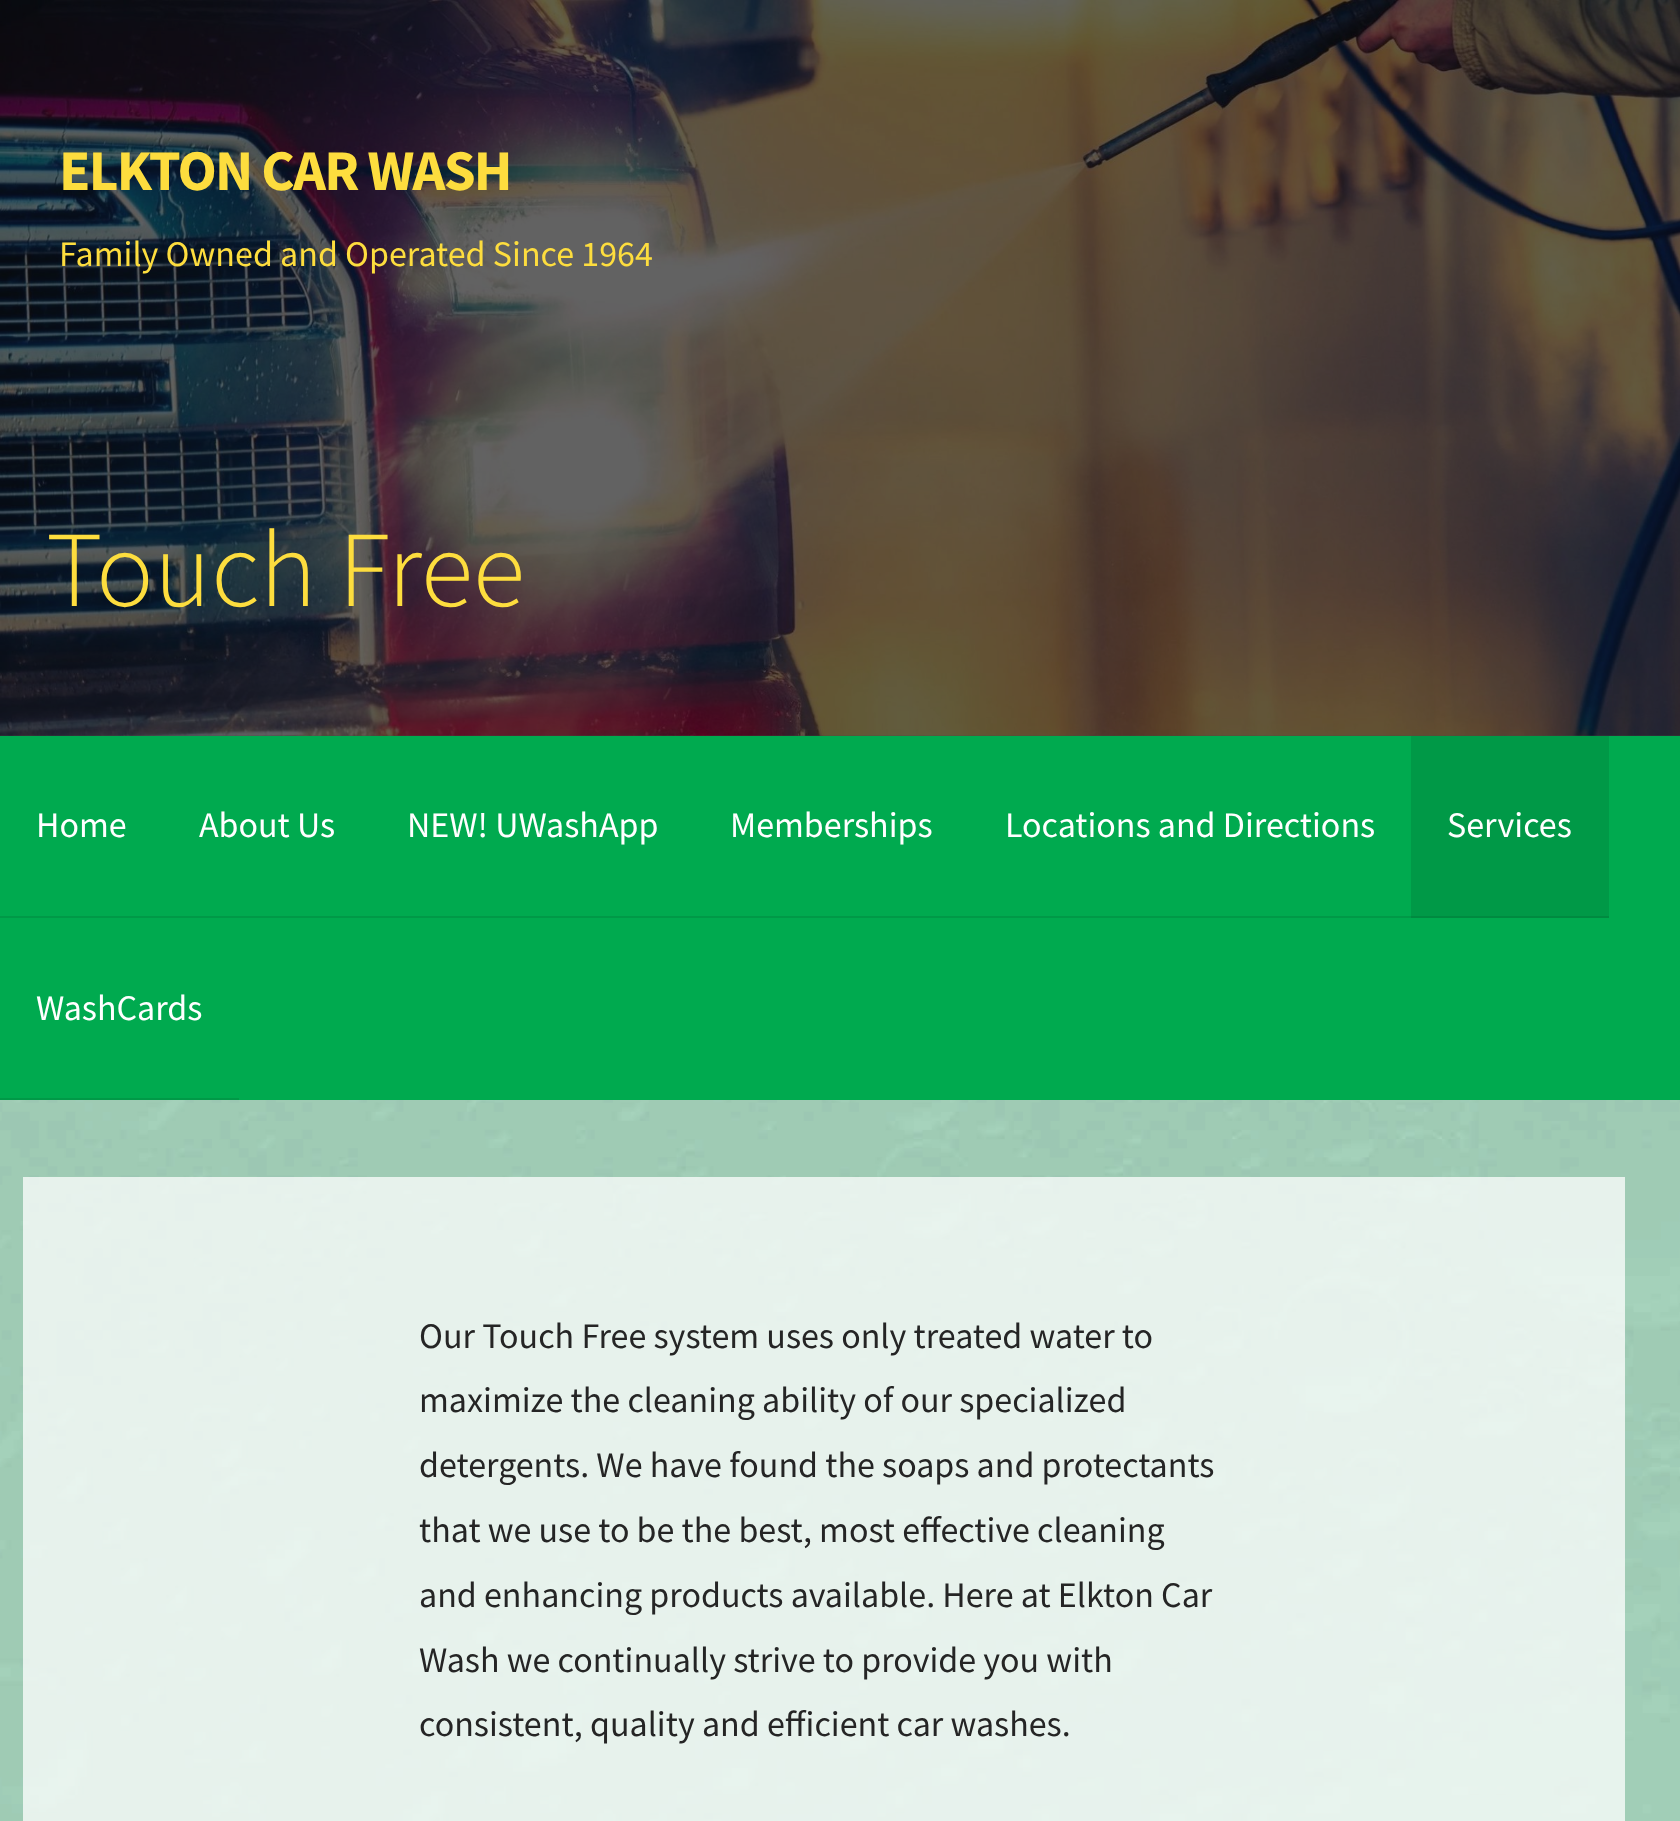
<svg xmlns="http://www.w3.org/2000/svg" width="1680" height="1821" viewBox="0 0 1680 1821">
  <rect width="100%" height="100%" fill="#fff"/>
  <image x="0" y="735" width="1680" height="1086" href="img/1.png"/>
  <image x="0" y="0" width="1680" height="736" href="img/2.png"/>
  <path d="M0 0h1680v736H0z" fill="#0a0a0aa3"/>
  <path d="M0 736h1680v364H0z" fill="#00aa4f"/>
  <path d="M0 916h1411v2H0z" fill="#009947"/>
  <path d="M1411 736h198v180H1411z" fill="#009947"/>
  <path d="M1411 916h198v2H1411z" fill="#008a40"/>
  <path d="M0 1098h239v2H0z" fill="#009947"/>
  <path d="M23 1177h1602v644H23z" fill="#ffffffbf"/>
  <text x="59" y="190" font-family="Source Sans Pro" font-size="57.5" font-weight="bold" letter-spacing="-1.75" fill="#fddd3e">ELKTON CAR WASH</text>
  <text x="59" y="266" font-family="Source Sans Pro" font-size="36" fill="#fddd3e">Family Owned and Operated Since 1964</text>
  <text x="46" y="606" font-family="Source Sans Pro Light" font-size="108" font-weight="300" fill="#fddd3e">Touch Free</text>
  <g font-family="Source Sans Pro" font-size="36" fill="#fff">
    <text x="36" y="837">Home</text>
    <text x="199" y="837">About Us</text>
    <text x="407" y="837">NEW! UWashApp</text>
    <text x="730" y="837">Memberships</text>
    <text x="1005" y="837">Locations and Directions</text>
    <text x="1447" y="837">Services</text>
    <text x="36" y="1020">WashCards</text>
  </g>
  <g font-family="Source Sans Pro" font-size="36" fill="#252525">
    <text x="419" y="1348">Our Touch Free system uses only treated water to</text>
    <text x="419" y="1412">maximize the cleaning ability of our specialized</text>
    <text x="419" y="1477">detergents. We have found the soaps and protectants</text>
    <text x="419" y="1542">that we use to be the best, most effective cleaning</text>
    <text x="419" y="1607">and enhancing products available. Here at Elkton Car</text>
    <text x="419" y="1672">Wash we continually strive to provide you with</text>
    <text x="419" y="1736">consistent, quality and efficient car washes.</text>
  </g>
</svg>
